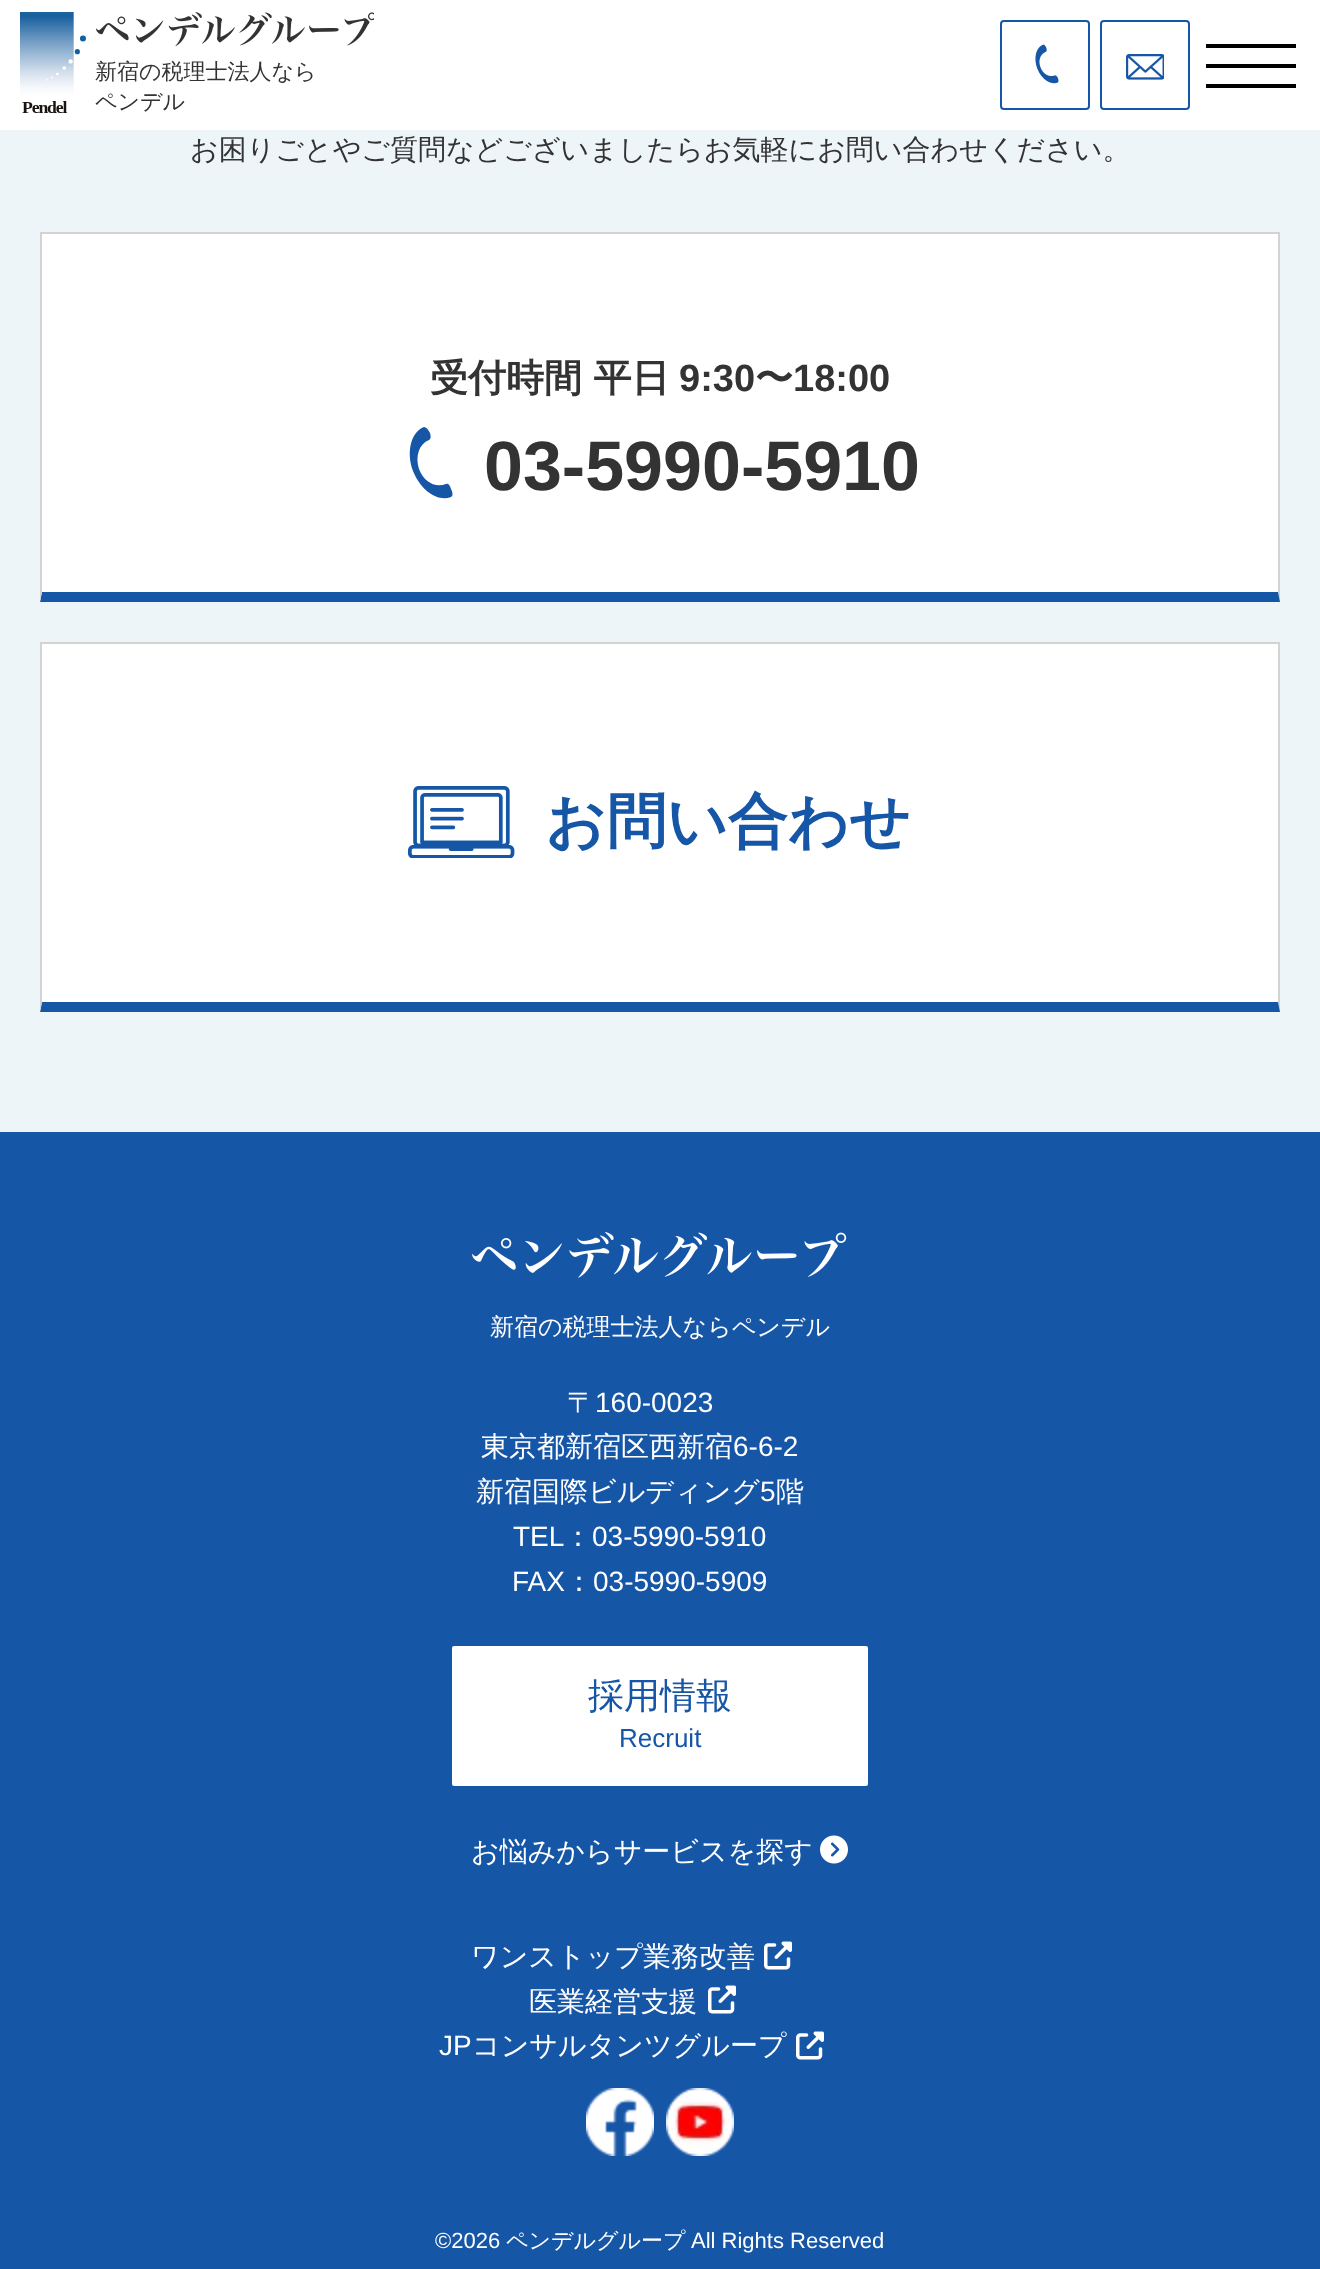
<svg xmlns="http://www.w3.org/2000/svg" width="1320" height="2269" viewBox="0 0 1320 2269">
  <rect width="100%" height="100%" fill="#edf5f9"/>
  <path d="M0 0h1320v130H0z" fill="#fff"/>
  <image x="20" y="12" width="66" height="101" href="img/1.png"/>
  <image x="96" y="12" width="278" height="34" href="img/2.png"/>
  <rect x="1001" y="21" width="88" height="88" rx="3" fill="none" stroke="#1656a7" stroke-width="2"/>
  <image x="1035" y="44" width="24" height="40" href="img/3.png"/>
  <rect x="1101" y="21" width="88" height="88" rx="3" fill="none" stroke="#1656a7" stroke-width="2"/>
  <image x="1126" y="54" width="38" height="26" href="img/4.png"/>
  <path d="M1206 64h90v4H1206z" fill="#000"/>
  <path d="M1206 44h90v4H1206z" fill="#000"/>
  <path d="M1206 84h90v4H1206z" fill="#000"/>
  <path d="M42 234h1236v358H42z" fill="#fff"/>
  <path d="M40 232h1240v2H40z" fill="#d3d3d3"/>
  <path d="M1280 232V602L1278 592V234Z" fill="#d3d3d3"/>
  <path d="M1280 602H40L42 592H1278Z" fill="#1656a7"/>
  <path d="M40 602V232L42 234V592Z" fill="#d3d3d3"/>
  <path d="M419 469C424 482 435 488 446 484C448 483 450 485 451 489C453 493 453 496 451 497C438 502 421 491 413 471C406 452 411 432 424 427C426 427 428 429 430 433C431 436 431 439 429 440C419 444 415 456 419 469Z" fill="#1656a7"/>
  <path d="M42 644h1236v358H42z" fill="#fff"/>
  <path d="M40 642h1240v2H40z" fill="#d3d3d3"/>
  <path d="M1280 642V1012L1278 1002V644Z" fill="#d3d3d3"/>
  <path d="M1280 1012H40L42 1002H1278Z" fill="#1656a7"/>
  <path d="M40 1012V642L42 644V1002Z" fill="#d3d3d3"/>
  <image x="408" y="786" width="107" height="72" href="img/5.png"/>
  <path d="M0 1132h1320v1137H0z" fill="#1656a7"/>
  <image x="472" y="1232" width="375" height="46" href="img/6.png"/>
  <rect x="451" y="1645" width="418" height="142" rx="3" fill="#fff" stroke="#1656a7" stroke-width="2"/>
  <image x="820" y="1835" width="28" height="29" href="img/7.png"/>
  <image x="764" y="1941" width="28" height="29" href="img/8.png"/>
  <image x="708" y="1985" width="28" height="29" href="img/8.png"/>
  <image x="796" y="2031" width="28" height="29" href="img/8.png"/>
  <image x="586" y="2088" width="68" height="68" href="img/9.png"/>
  <image x="666" y="2088" width="68" height="68" href="img/10.png"/>
  <g font-family="WenQuanYi Zen Hei" font-size="22" font-weight="500" fill="#333">
    <text x="95" y="79">新宿の税理士法人なら</text>
    <text x="95" y="109">ペンデル</text>
  </g>
  <text x="190" y="159" font-family="WenQuanYi Zen Hei" font-size="28" font-weight="500" fill="#333">お困りごとやご質問などございましたらお気軽にお問い合わせください。</text>
  <text x="430" y="391" font-family="WenQuanYi Zen Hei" font-size="38" font-weight="bold" fill="#333">受付時間 平日</text>
  <text x="679" y="391" font-family="Liberation Sans" font-size="38" font-weight="bold" fill="#333">9:30</text>
  <text x="755" y="391" font-family="WenQuanYi Zen Hei" font-size="38" font-weight="bold" fill="#333">〜</text>
  <text x="793" y="391" font-family="Liberation Sans" font-size="38" font-weight="bold" fill="#333">18:00</text>
  <text x="484" y="490" font-family="Liberation Sans" font-size="70" font-weight="bold" fill="#333">03-5990-5910</text>
  <text x="545" y="842" font-family="WenQuanYi Zen Hei" font-size="60" font-weight="bold" fill="#1656a7">お問い合わせ</text>
  <text x="490" y="1335" font-family="WenQuanYi Zen Hei" font-size="24" font-weight="500" fill="#fff">新宿の税理士法人ならペンデル</text>
  <text x="567" y="1412" font-family="WenQuanYi Zen Hei" font-size="28" font-weight="500" fill="#fff">〒</text>
  <text x="595" y="1412" font-family="Liberation Sans" font-size="28" fill="#fff">160-0023</text>
  <text x="481" y="1456" font-family="WenQuanYi Zen Hei" font-size="28" font-weight="500" fill="#fff">東京都新宿区西新宿</text>
  <text x="733" y="1456" font-family="Liberation Sans" font-size="28" fill="#fff">6-6-2</text>
  <text x="476" y="1501" font-family="WenQuanYi Zen Hei" font-size="28" font-weight="500" fill="#fff">新宿国際ビルディング</text>
  <text x="760" y="1501" font-family="Liberation Sans" font-size="28" fill="#fff">5</text>
  <text x="776" y="1501" font-family="WenQuanYi Zen Hei" font-size="28" font-weight="500" fill="#fff">階</text>
  <text x="513" y="1546" font-family="Liberation Sans" font-size="28" fill="#fff">TEL</text>
  <text x="564" y="1546" font-family="WenQuanYi Zen Hei" font-size="28" font-weight="500" fill="#fff">：</text>
  <g font-family="Liberation Sans" font-size="28" fill="#fff">
    <text x="592" y="1546">03-5990-5910</text>
    <text x="512" y="1591">FAX</text>
  </g>
  <text x="565" y="1591" font-family="WenQuanYi Zen Hei" font-size="28" font-weight="500" fill="#fff">：</text>
  <text x="593" y="1591" font-family="Liberation Sans" font-size="28" fill="#fff">03-5990-5909</text>
  <text x="588" y="1708" font-family="WenQuanYi Zen Hei" font-size="36" font-weight="500" fill="#1656a7">採用情報</text>
  <text x="619" y="1747" font-family="Liberation Sans" font-size="26" fill="#1656a7">Recruit</text>
  <g font-family="WenQuanYi Zen Hei" font-size="28" font-weight="500" fill="#fff">
    <text x="471" y="1861">お悩みからサービスを探す</text>
    <text x="471" y="1966">ワンストップ業務改善</text>
    <text x="529" y="2011">医業経営支援</text>
  </g>
  <text x="439" y="2055" font-family="Liberation Sans" font-size="28" fill="#fff">JP</text>
  <text x="472" y="2055" font-family="WenQuanYi Zen Hei" font-size="28" font-weight="500" fill="#fff">コンサルタンツグループ</text>
  <text x="435" y="2248" font-family="Liberation Sans" font-size="22" fill="#fff">©2026</text>
  <text x="506" y="2248" font-family="WenQuanYi Zen Hei" font-size="22" font-weight="500" fill="#fff">ペンデルグループ</text>
  <text x="691" y="2248" font-family="Liberation Sans" font-size="22" fill="#fff">All Rights Reserved</text>
</svg>
